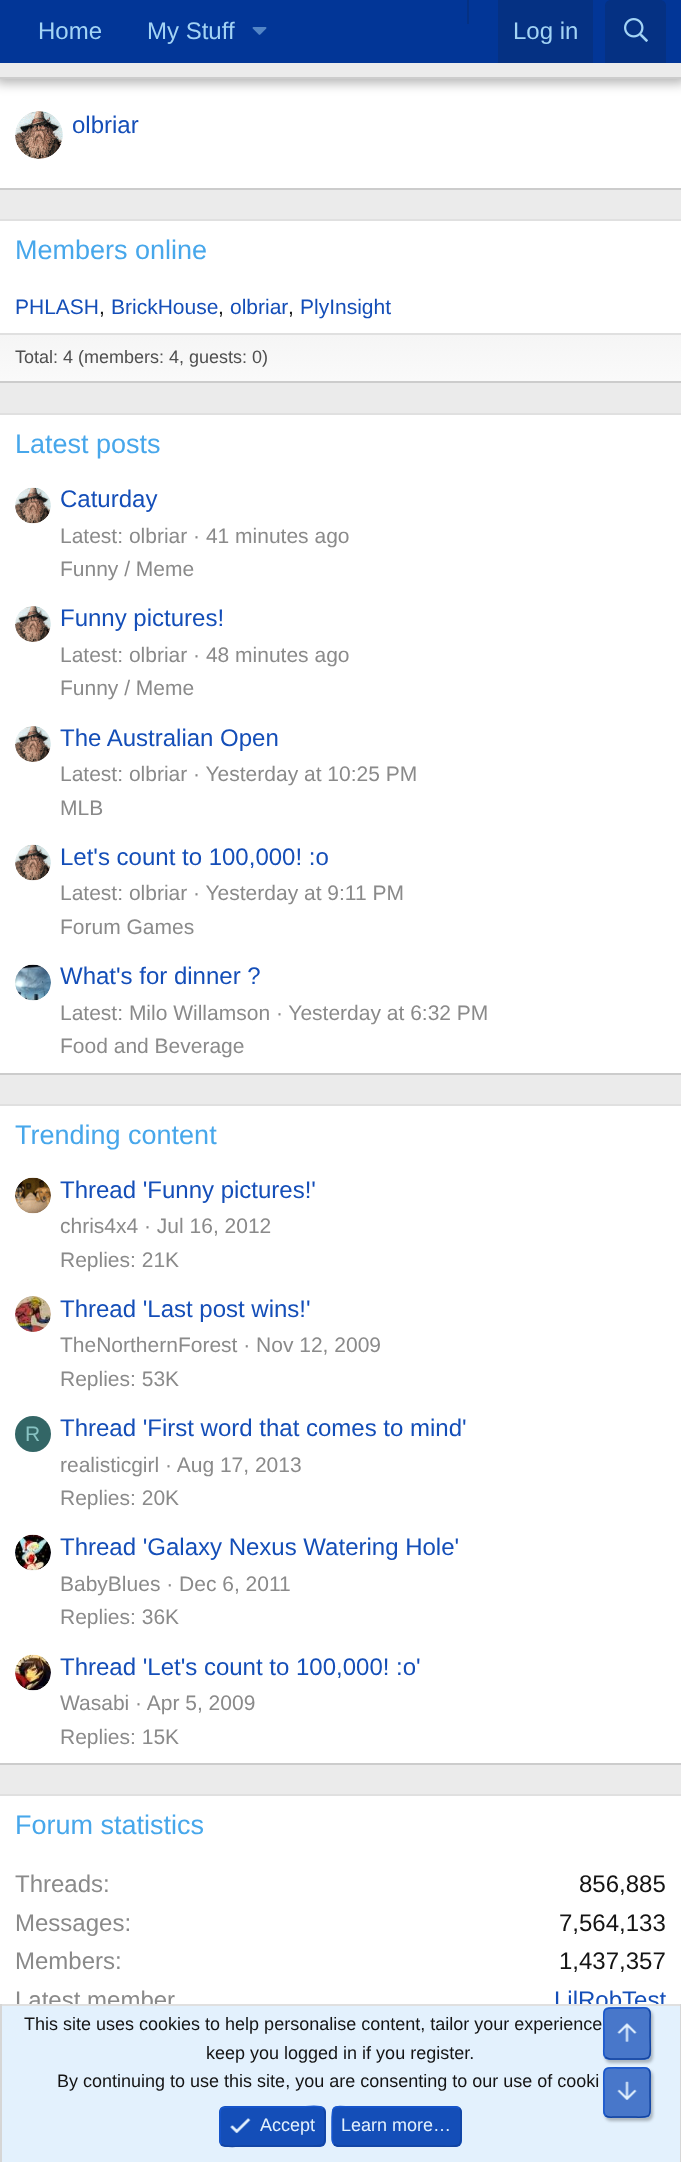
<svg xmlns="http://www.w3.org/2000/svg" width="681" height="2162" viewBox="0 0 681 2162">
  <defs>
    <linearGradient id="g1" gradientUnits="userSpaceOnUse" x1="341" y1="334" x2="341" y2="381"><stop offset="0" stop-color="#f5f5f5"/><stop offset="1" stop-color="#fafafa"/></linearGradient>
    <clipPath id="clip1"><path d="M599 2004H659V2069H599ZM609 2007H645C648.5 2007 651 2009.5 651 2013V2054C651 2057.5 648.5 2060 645 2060H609C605.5 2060 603 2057.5 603 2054V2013C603 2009.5 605.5 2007 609 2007Z" clip-rule="evenodd"/></clipPath>
    <clipPath id="clip2"><path d="M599 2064H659V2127H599ZM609 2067H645C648.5 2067 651 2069.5 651 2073V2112C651 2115.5 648.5 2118 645 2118H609C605.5 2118 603 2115.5 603 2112V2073C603 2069.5 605.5 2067 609 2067Z" clip-rule="evenodd"/></clipPath>
  </defs>
  <rect width="100%" height="100%" fill="#ebebeb"/>
  <path d="M0 79h681v109H0z" fill="#fff"/>
  <path d="M-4 -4h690v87H-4z" fill="#0000004d" filter="blur(6px)"/>
  <path d="M0 0h681v63H0z" fill="#023697"/>
  <image x="252" y="27" width="15" height="8" href="img/1.png"/>
  <path d="M467 0h2v24H467z" fill="#053183"/>
  <path d="M498 0h95v63H498z" fill="#053183"/>
  <path d="M611 0H660C663.5 0 666 2.5 666 6V63H605V6C605 2.5 607.5 0 611 0Z" fill="#053183"/>
  <image x="624" y="18" width="24" height="24" href="img/2.png"/>
  <path d="M0 63h681v14H0z" fill="#ebebeb"/>
  <path d="M0 77h681v2H0z" fill="#ccc"/>
  <path d="M0 188h681v2H0z" fill="#ccc"/>
  <image x="15" y="111" width="48" height="48" href="img/3.png"/>
  <path d="M0 221h681v112H0z" fill="#fff"/>
  <path d="M0 219h681v2H0z" fill="#e0e0e0"/>
  <path d="M0 381h681v2H0z" fill="#ccc"/>
  <path d="M0 335h681v46H0z" fill="url(#g1)"/>
  <path d="M0 333h681v2H0z" fill="#e0e0e0"/>
  <path d="M0 415h681v658H0z" fill="#fff"/>
  <path d="M0 413h681v2H0z" fill="#e0e0e0"/>
  <path d="M0 1073h681v2H0z" fill="#ccc"/>
  <image x="15" y="487" width="36" height="37" href="img/4.png"/>
  <image x="15" y="606" width="36" height="36" href="img/5.png"/>
  <image x="15" y="726" width="36" height="36" href="img/5.png"/>
  <image x="15" y="844" width="36" height="37" href="img/4.png"/>
  <image x="15" y="964" width="36" height="37" href="img/6.png"/>
  <path d="M0 1106h681v657H0z" fill="#fff"/>
  <path d="M0 1104h681v2H0z" fill="#e0e0e0"/>
  <path d="M0 1763h681v2H0z" fill="#ccc"/>
  <image x="15" y="1177" width="36" height="37" href="img/7.png"/>
  <image x="15" y="1296" width="36" height="36" href="img/8.png"/>
  <circle cx="33" cy="1434" r="18" fill="#366"/>
  <image x="15" y="1534" width="36" height="37" href="img/9.png"/>
  <image x="15" y="1654" width="36" height="37" href="img/10.png"/>
  <path d="M0 1796h681v208H0z" fill="#fff"/>
  <path d="M0 1794h681v2H0z" fill="#e0e0e0"/>
  <g font-family="Liberation Sans" font-size="24" fill="#a3d4f5">
    <text x="38" y="39">Home</text>
    <text x="147" y="39">My Stuff</text>
    <text x="513" y="39">Log in</text>
  </g>
  <text x="72" y="133" font-family="Liberation Sans" font-size="24" fill="#144eb8">olbriar</text>
  <text x="15" y="259" font-family="Liberation Sans" font-size="27" fill="#47a7eb">Members online</text>
  <text x="15" y="314" font-family="Liberation Sans" font-size="21" fill="#144eb8">PHLASH</text>
  <text x="99" y="314" font-family="Liberation Sans" font-size="21" fill="#141414">,</text>
  <text x="111" y="314" font-family="Liberation Sans" font-size="21" fill="#144eb8">BrickHouse</text>
  <text x="218" y="314" font-family="Liberation Sans" font-size="21" fill="#141414">,</text>
  <text x="230" y="314" font-family="Liberation Sans" font-size="21" fill="#144eb8">olbriar</text>
  <text x="288" y="314" font-family="Liberation Sans" font-size="21" fill="#141414">,</text>
  <text x="300" y="314" font-family="Liberation Sans" font-size="21" fill="#144eb8">PlyInsight</text>
  <text x="15" y="363" font-family="Liberation Sans" font-size="18" fill="#4f4f4f">Total: 4 (members: 4, guests: 0)</text>
  <text x="15" y="453" font-family="Liberation Sans" font-size="27" fill="#47a7eb">Latest posts</text>
  <text x="60" y="507" font-family="Liberation Sans" font-size="24" fill="#144eb8">Caturday</text>
  <g font-family="Liberation Sans" font-size="21" fill="#8a8a8a">
    <text x="60" y="543">Latest: olbriar · 41 minutes ago</text>
    <text x="60" y="576">Funny / Meme</text>
  </g>
  <text x="60" y="626" font-family="Liberation Sans" font-size="24" fill="#144eb8">Funny pictures!</text>
  <g font-family="Liberation Sans" font-size="21" fill="#8a8a8a">
    <text x="60" y="662">Latest: olbriar · 48 minutes ago</text>
    <text x="60" y="695">Funny / Meme</text>
  </g>
  <text x="60" y="746" font-family="Liberation Sans" font-size="24" fill="#144eb8">The Australian Open</text>
  <g font-family="Liberation Sans" font-size="21" fill="#8a8a8a">
    <text x="60" y="781">Latest: olbriar · Yesterday at 10:25 PM</text>
    <text x="60" y="815">MLB</text>
  </g>
  <text x="60" y="865" font-family="Liberation Sans" font-size="24" fill="#144eb8">Let's count to 100,000! :o</text>
  <g font-family="Liberation Sans" font-size="21" fill="#8a8a8a">
    <text x="60" y="900">Latest: olbriar · Yesterday at 9:11 PM</text>
    <text x="60" y="934">Forum Games</text>
  </g>
  <text x="60" y="984" font-family="Liberation Sans" font-size="24" fill="#144eb8">What's for dinner ?</text>
  <g font-family="Liberation Sans" font-size="21" fill="#8a8a8a">
    <text x="60" y="1020">Latest: Milo Willamson · Yesterday at 6:32 PM</text>
    <text x="60" y="1053">Food and Beverage</text>
  </g>
  <text x="15" y="1144" font-family="Liberation Sans" font-size="27" fill="#47a7eb">Trending content</text>
  <text x="60" y="1198" font-family="Liberation Sans" font-size="24" fill="#144eb8">Thread 'Funny pictures!'</text>
  <g font-family="Liberation Sans" font-size="21" fill="#8a8a8a">
    <text x="60" y="1233">chris4x4 · Jul 16, 2012</text>
    <text x="60" y="1267">Replies: 21K</text>
  </g>
  <text x="60" y="1317" font-family="Liberation Sans" font-size="24" fill="#144eb8">Thread 'Last post wins!'</text>
  <g font-family="Liberation Sans" font-size="21" fill="#8a8a8a">
    <text x="60" y="1352">TheNorthernForest · Nov 12, 2009</text>
    <text x="60" y="1386">Replies: 53K</text>
  </g>
  <text x="25" y="1441" font-family="Liberation Sans" font-size="21" fill="#88c3c3">R</text>
  <text x="60" y="1436" font-family="Liberation Sans" font-size="24" fill="#144eb8">Thread 'First word that comes to mind'</text>
  <g font-family="Liberation Sans" font-size="21" fill="#8a8a8a">
    <text x="60" y="1472">realisticgirl · Aug 17, 2013</text>
    <text x="60" y="1505">Replies: 20K</text>
  </g>
  <text x="60" y="1555" font-family="Liberation Sans" font-size="24" fill="#144eb8">Thread 'Galaxy Nexus Watering Hole'</text>
  <g font-family="Liberation Sans" font-size="21" fill="#8a8a8a">
    <text x="60" y="1591">BabyBlues · Dec 6, 2011</text>
    <text x="60" y="1624">Replies: 36K</text>
  </g>
  <text x="60" y="1675" font-family="Liberation Sans" font-size="24" fill="#144eb8">Thread 'Let's count to 100,000! :o'</text>
  <g font-family="Liberation Sans" font-size="21" fill="#8a8a8a">
    <text x="60" y="1710">Wasabi · Apr 5, 2009</text>
    <text x="60" y="1744">Replies: 15K</text>
  </g>
  <text x="15" y="1834" font-family="Liberation Sans" font-size="27" fill="#47a7eb">Forum statistics</text>
  <text x="15" y="1892" font-family="Liberation Sans" font-size="24" fill="#8a8a8a">Threads:</text>
  <text x="579" y="1892" font-family="Liberation Sans" font-size="24" fill="#141414">856,885</text>
  <text x="15" y="1931" font-family="Liberation Sans" font-size="24" fill="#8a8a8a">Messages:</text>
  <text x="559" y="1931" font-family="Liberation Sans" font-size="24" fill="#141414">7,564,133</text>
  <text x="15" y="1969" font-family="Liberation Sans" font-size="24" fill="#8a8a8a">Members:</text>
  <text x="559" y="1969" font-family="Liberation Sans" font-size="24" fill="#141414">1,437,357</text>
  <text x="15" y="2008" font-family="Liberation Sans" font-size="24" fill="#8a8a8a">Latest member</text>
  <text x="554" y="2008" font-family="Liberation Sans" font-size="24" fill="#144eb8">LilRobTest</text>
  <path d="M2 2006h678v156H2z" fill="#e3f1fd"/>
  <path d="M0 2004h681v2H0z" fill="#e0e0e0"/>
  <path d="M680 2004h1v158H680z" fill="#d6d6d6"/>
  <path d="M0 2004h2v158H0z" fill="#d6d6d6"/>
  <g font-family="Liberation Sans" font-size="18" fill="#141414">
    <text x="24" y="2030">This site uses cookies to help personalise content, tailor your experience</text>
    <text x="206" y="2059">keep you logged in if you register.</text>
    <text x="57" y="2087">By continuing to use this site, you are consenting to our use of cooki</text>
  </g>
  <rect x="219" y="2106" width="107" height="41" rx="6" fill="#144eb8"/>
  <path d="M323 2108.5C325.5 2110.5 325 2114 325 2117V2126C325 2148.5 327.5 2146 304 2146H241C239 2146 225 2148 221.5 2144" fill="none" stroke="#1244a1" stroke-width="1.5"/>
  <path d="M221.5 2144C219 2142 220 2138.5 220 2136V2126C220 2104 217 2107 241 2107H304C305.5 2107 319.5 2104.5 323 2108.5" fill="none" stroke="#1757cf" stroke-width="1.5"/>
  <image x="230" y="2118" width="21" height="16" href="img/11.png"/>
  <text x="260" y="2131" font-family="Liberation Sans" font-size="18" fill="#e3f1fd">Accept</text>
  <rect x="332" y="2106" width="130" height="41" rx="6" fill="#144eb8"/>
  <path d="M459.5 2108.5C462 2110.5 461 2114 461 2117V2126C461 2150.5 463 2146 436 2146H337.5C336 2145.5 335 2145 334 2144" fill="none" stroke="#1244a1" stroke-width="1.5"/>
  <path d="M334 2144C331.5 2142 332 2138.5 332 2136V2126C332 2102 330.5 2107 357 2107H456C457.5 2107 458.5 2107.5 459.5 2108.5" fill="none" stroke="#1757cf" stroke-width="1.5"/>
  <text x="341" y="2131" font-family="Liberation Sans" font-size="18" fill="#e3f1fd">Learn more…</text>
  <g clip-path="url(#clip1)">
    <rect x="605" y="2010" width="48" height="53" rx="6" fill="#00000040" filter="blur(1.5px)"/>
  </g>
  <rect x="603" y="2007" width="48" height="53" rx="6" fill="#144eb8bf"/>
  <path d="M648.5 2009.5C651.5 2012 650 2017 650 2020V2033C650 2062 655 2059 627 2059H615C612 2059 607.5 2059.5 605.5 2057" fill="none" stroke="#1244a1" stroke-width="1.5"/>
  <path d="M605.5 2057C602.5 2054.5 604 2049.5 604 2047V2033C604 2004.5 599 2008 627 2008H639C642 2008 646.5 2007 648.5 2009.5" fill="none" stroke="#1757cf" stroke-width="1.5"/>
  <image x="617" y="2023" width="20" height="19" href="img/12.png"/>
  <g clip-path="url(#clip2)">
    <rect x="605" y="2070" width="48" height="51" rx="6" fill="#00000040" filter="blur(1.5px)"/>
  </g>
  <rect x="603" y="2067" width="48" height="51" rx="6" fill="#144eb8bf"/>
  <path d="M648.5 2069.5C651 2072 650 2076.5 650 2079.5V2092.5C650 2121 654.5 2117 627 2117H615C612 2117 607.5 2118 605.5 2115.5" fill="none" stroke="#1244a1" stroke-width="1.5"/>
  <path d="M605.5 2115.5C603 2113 604 2108.5 604 2105.5V2092.5C604 2064 599.5 2068 627 2068H639C642 2068 646.5 2067 648.5 2069.5" fill="none" stroke="#1757cf" stroke-width="1.5"/>
  <image x="617" y="2081" width="20" height="19" href="img/13.png"/>
</svg>
